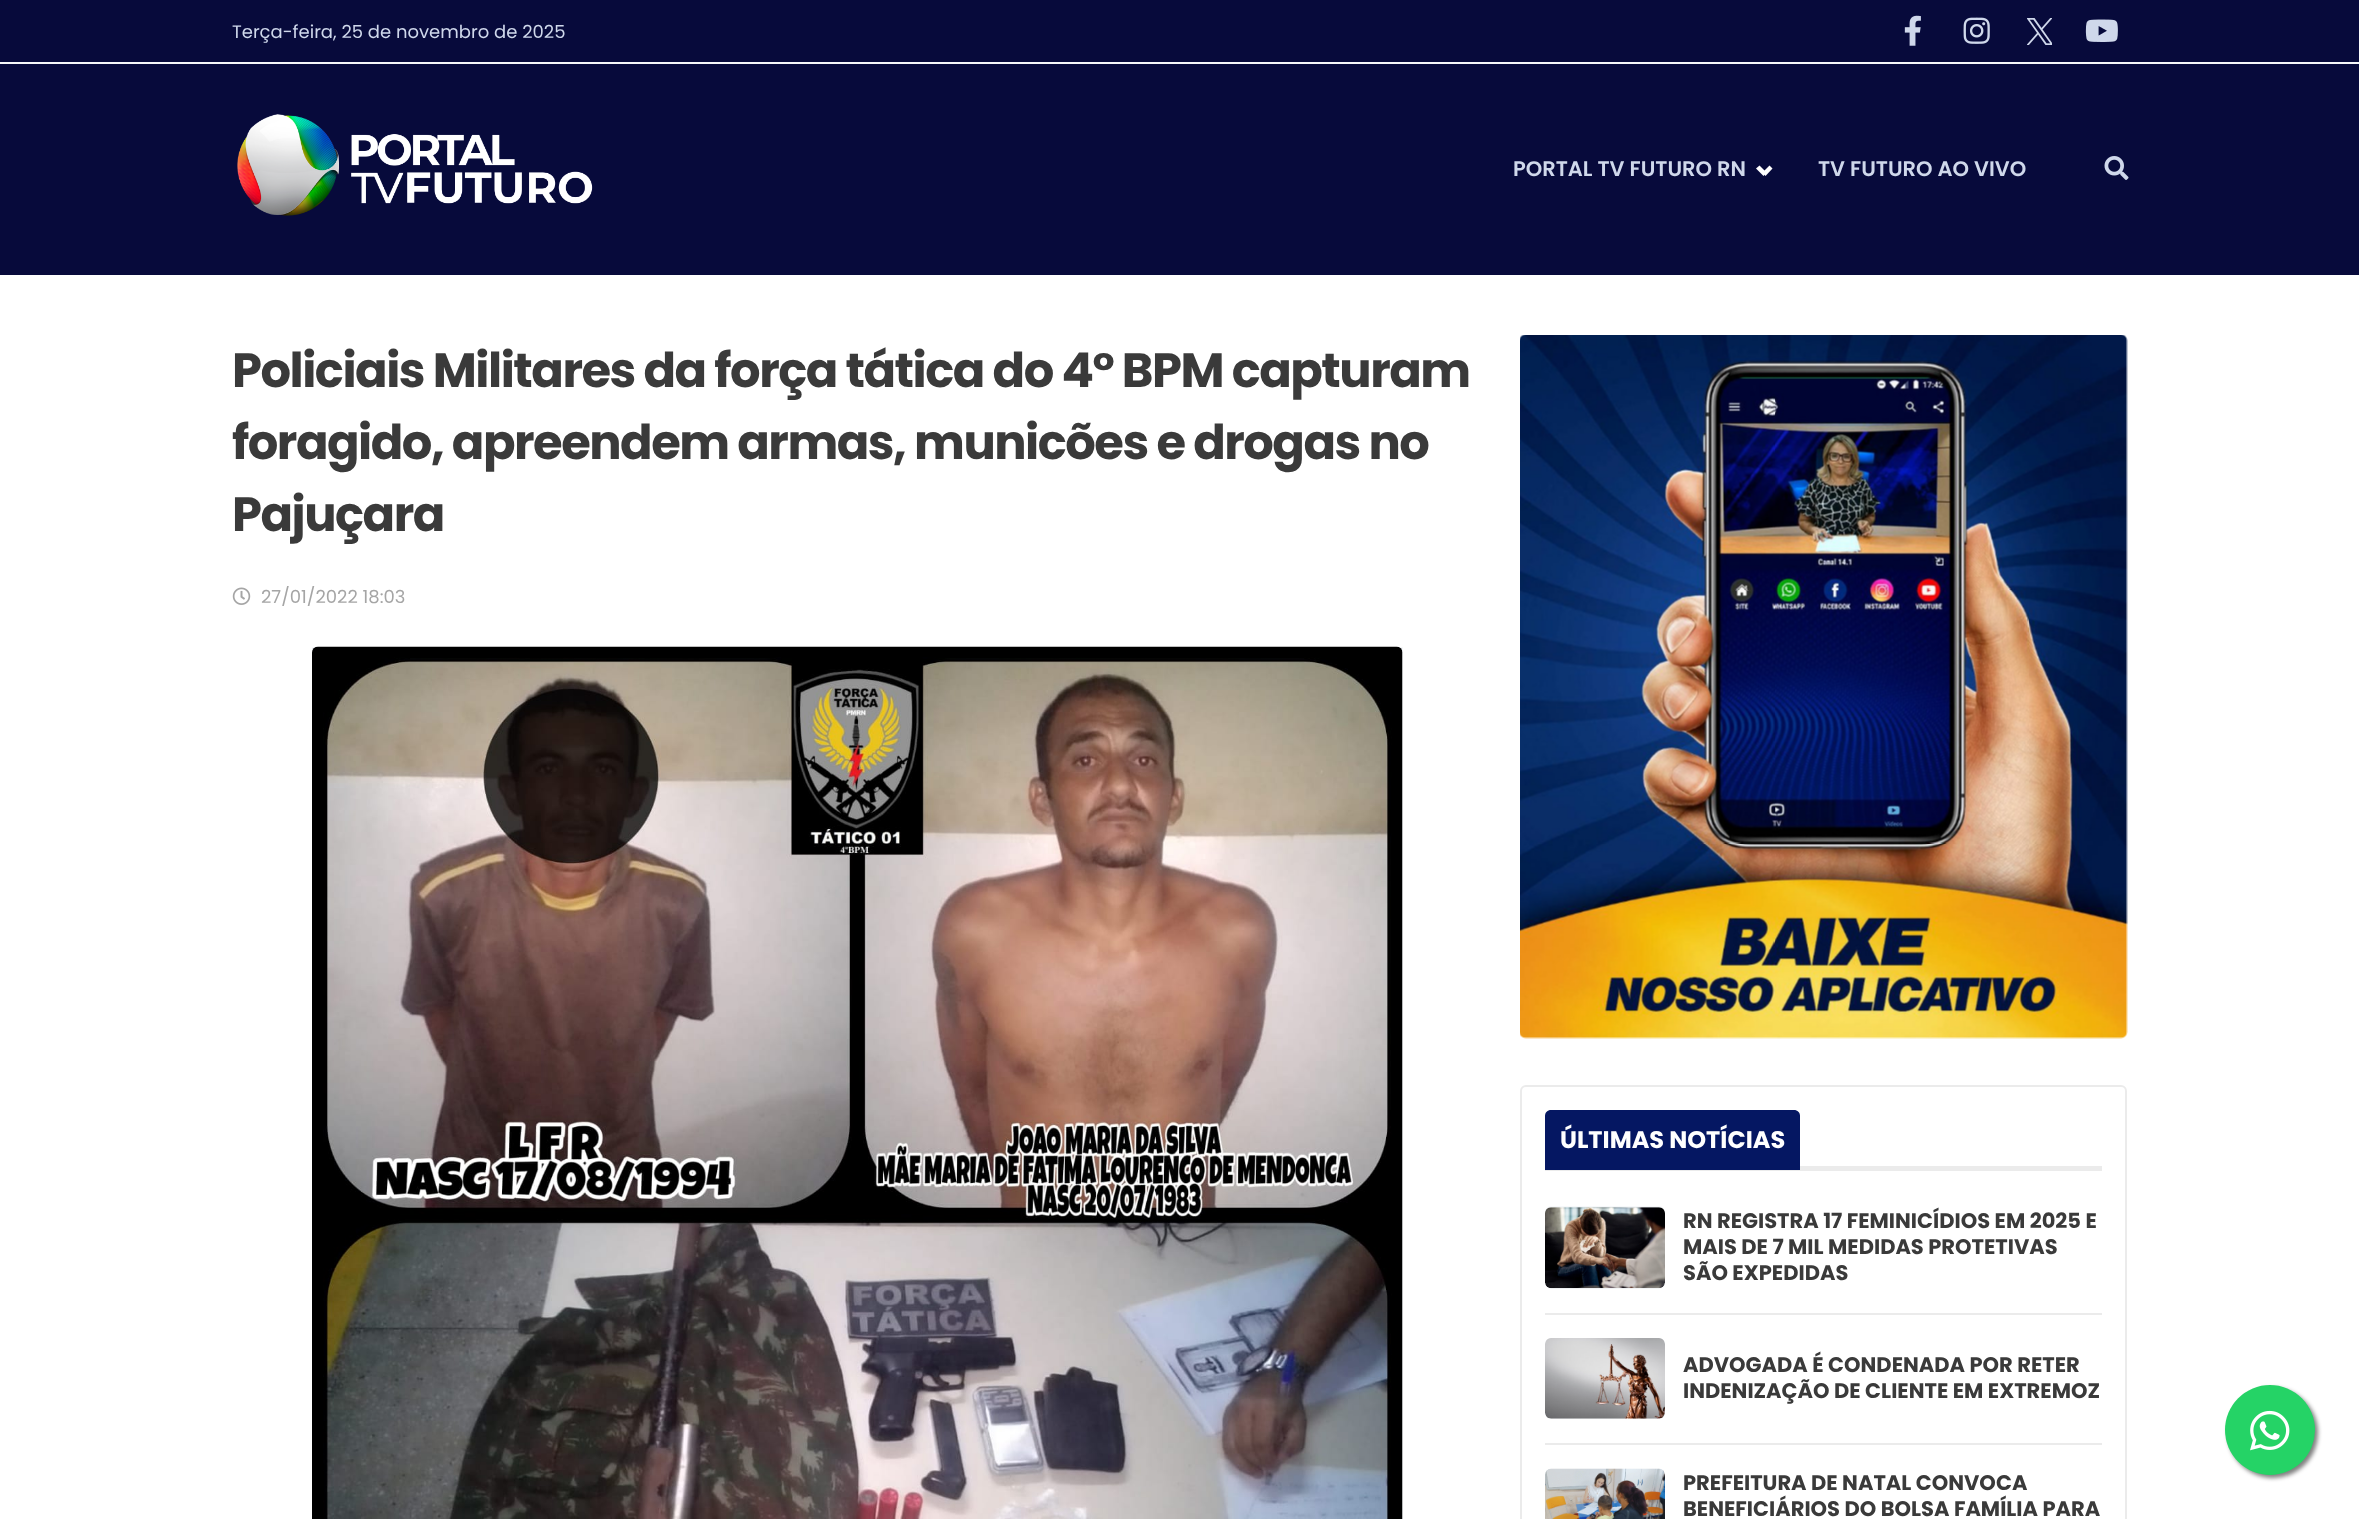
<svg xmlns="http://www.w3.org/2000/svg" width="2359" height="1519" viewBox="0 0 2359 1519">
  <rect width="100%" height="100%" fill="#fff"/>
  <path d="M0 0h2359v275H0z" fill="#070a3b"/>
  <image x="1904" y="15" width="17" height="31" href="img/1.png"/>
  <image x="1963" y="17" width="27" height="27" href="img/2.png"/>
  <image x="2027" y="18" width="25" height="27" href="img/3.png"/>
  <image x="2085" y="19" width="33" height="23" href="img/4.png"/>
  <path d="M0 62h2359v2H0z" fill="#f6f8fa"/>
  <image x="237" y="114" width="356" height="102" href="img/5.png"/>
  <path d="M1762.5 172.5L1769.5 165.5L1772.5 168.5L1765.5 176Z" fill="#fff"/>
  <path d="M1756 168.5L1759.5 165.5L1766.5 172.5L1763.5 176Z" fill="#fff"/>
  <image x="2104" y="156" width="25" height="24" href="img/6.png"/>
  <image x="232" y="587" width="19" height="18" href="img/7.png"/>
  <path d="M312 647h1091v872H312z" fill="#f6f8fa"/>
  <image x="312" y="646" width="1091" height="873" href="img/8.png"/>
  <image x="1520" y="335" width="608" height="704" href="img/9.png"/>
  <rect x="1521" y="1086" width="605" height="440" rx="5" fill="none" stroke="#ebebeb" stroke-width="2"/>
  <path d="M1545 1166h557v5H1545z" fill="#ebebeb"/>
  <path d="M1551 1110H1794C1797.5 1110 1800 1112.5 1800 1116V1170H1545V1116C1545 1112.5 1547.5 1110 1551 1110Z" fill="#051762"/>
  <rect x="1545" y="1206" width="120" height="83" rx="6" fill="#f6f8fa"/>
  <image x="1545" y="1207" width="120" height="82" href="img/10.png"/>
  <path d="M1545 1313h557v2H1545z" fill="#ebebeb"/>
  <rect x="1545" y="1338" width="120" height="81" rx="6" fill="#f6f8fa"/>
  <image x="1545" y="1338" width="120" height="81" href="img/11.png"/>
  <path d="M1545 1443h557v2H1545z" fill="#ebebeb"/>
  <image x="1545" y="1468" width="120" height="51" href="img/12.png"/>
  <rect x="2228" y="1388" width="90" height="90" rx="45" fill="#00000080" filter="blur(2px)"/>
  <circle cx="2270" cy="1430" r="45" fill="#25d366"/>
  <image x="2250" y="1410" width="40" height="41" href="img/13.png"/>
  <text x="232" y="38" font-family="Poppins" font-size="18" fill="#cfd8eb">Terça-feira, 25 de novembro de 2025</text>
  <g font-family="Poppins" font-size="21" font-weight="600" fill="#cfd8eb">
    <text x="1513" y="176">PORTAL TV FUTURO RN</text>
    <text x="1818" y="176">TV FUTURO AO VIVO</text>
  </g>
  <g font-family="Poppins" font-size="48" font-weight="bold" letter-spacing="-1.5" fill="#3a3a3a">
    <text x="232" y="387">Policiais Militares da força tática do 4° BPM capturam</text>
    <text x="232" y="459">foragido, apreendem armas, municões e drogas no</text>
    <text x="232" y="531">Pajuçara</text>
  </g>
  <text x="261" y="603" font-family="Poppins" font-size="18" fill="#a5a5a5">27/01/2022 18:03</text>
  <text x="1560" y="1148" font-family="Poppins" font-size="24" font-weight="bold" fill="#fff">ÚLTIMAS NOTÍCIAS</text>
  <g font-family="Poppins" font-size="21" font-weight="bold" fill="#3a3a3a">
    <text x="1683" y="1228">RN REGISTRA 17 FEMINICÍDIOS EM 2025 E</text>
    <text x="1683" y="1254">MAIS DE 7 MIL MEDIDAS PROTETIVAS</text>
    <text x="1683" y="1280">SÃO EXPEDIDAS</text>
    <text x="1683" y="1372">ADVOGADA É CONDENADA POR RETER</text>
    <text x="1683" y="1398">INDENIZAÇÃO DE CLIENTE EM EXTREMOZ</text>
    <text x="1683" y="1490">PREFEITURA DE NATAL CONVOCA</text>
    <text x="1683" y="1516">BENEFICIÁRIOS DO BOLSA FAMÍLIA PARA</text>
  </g>
</svg>
